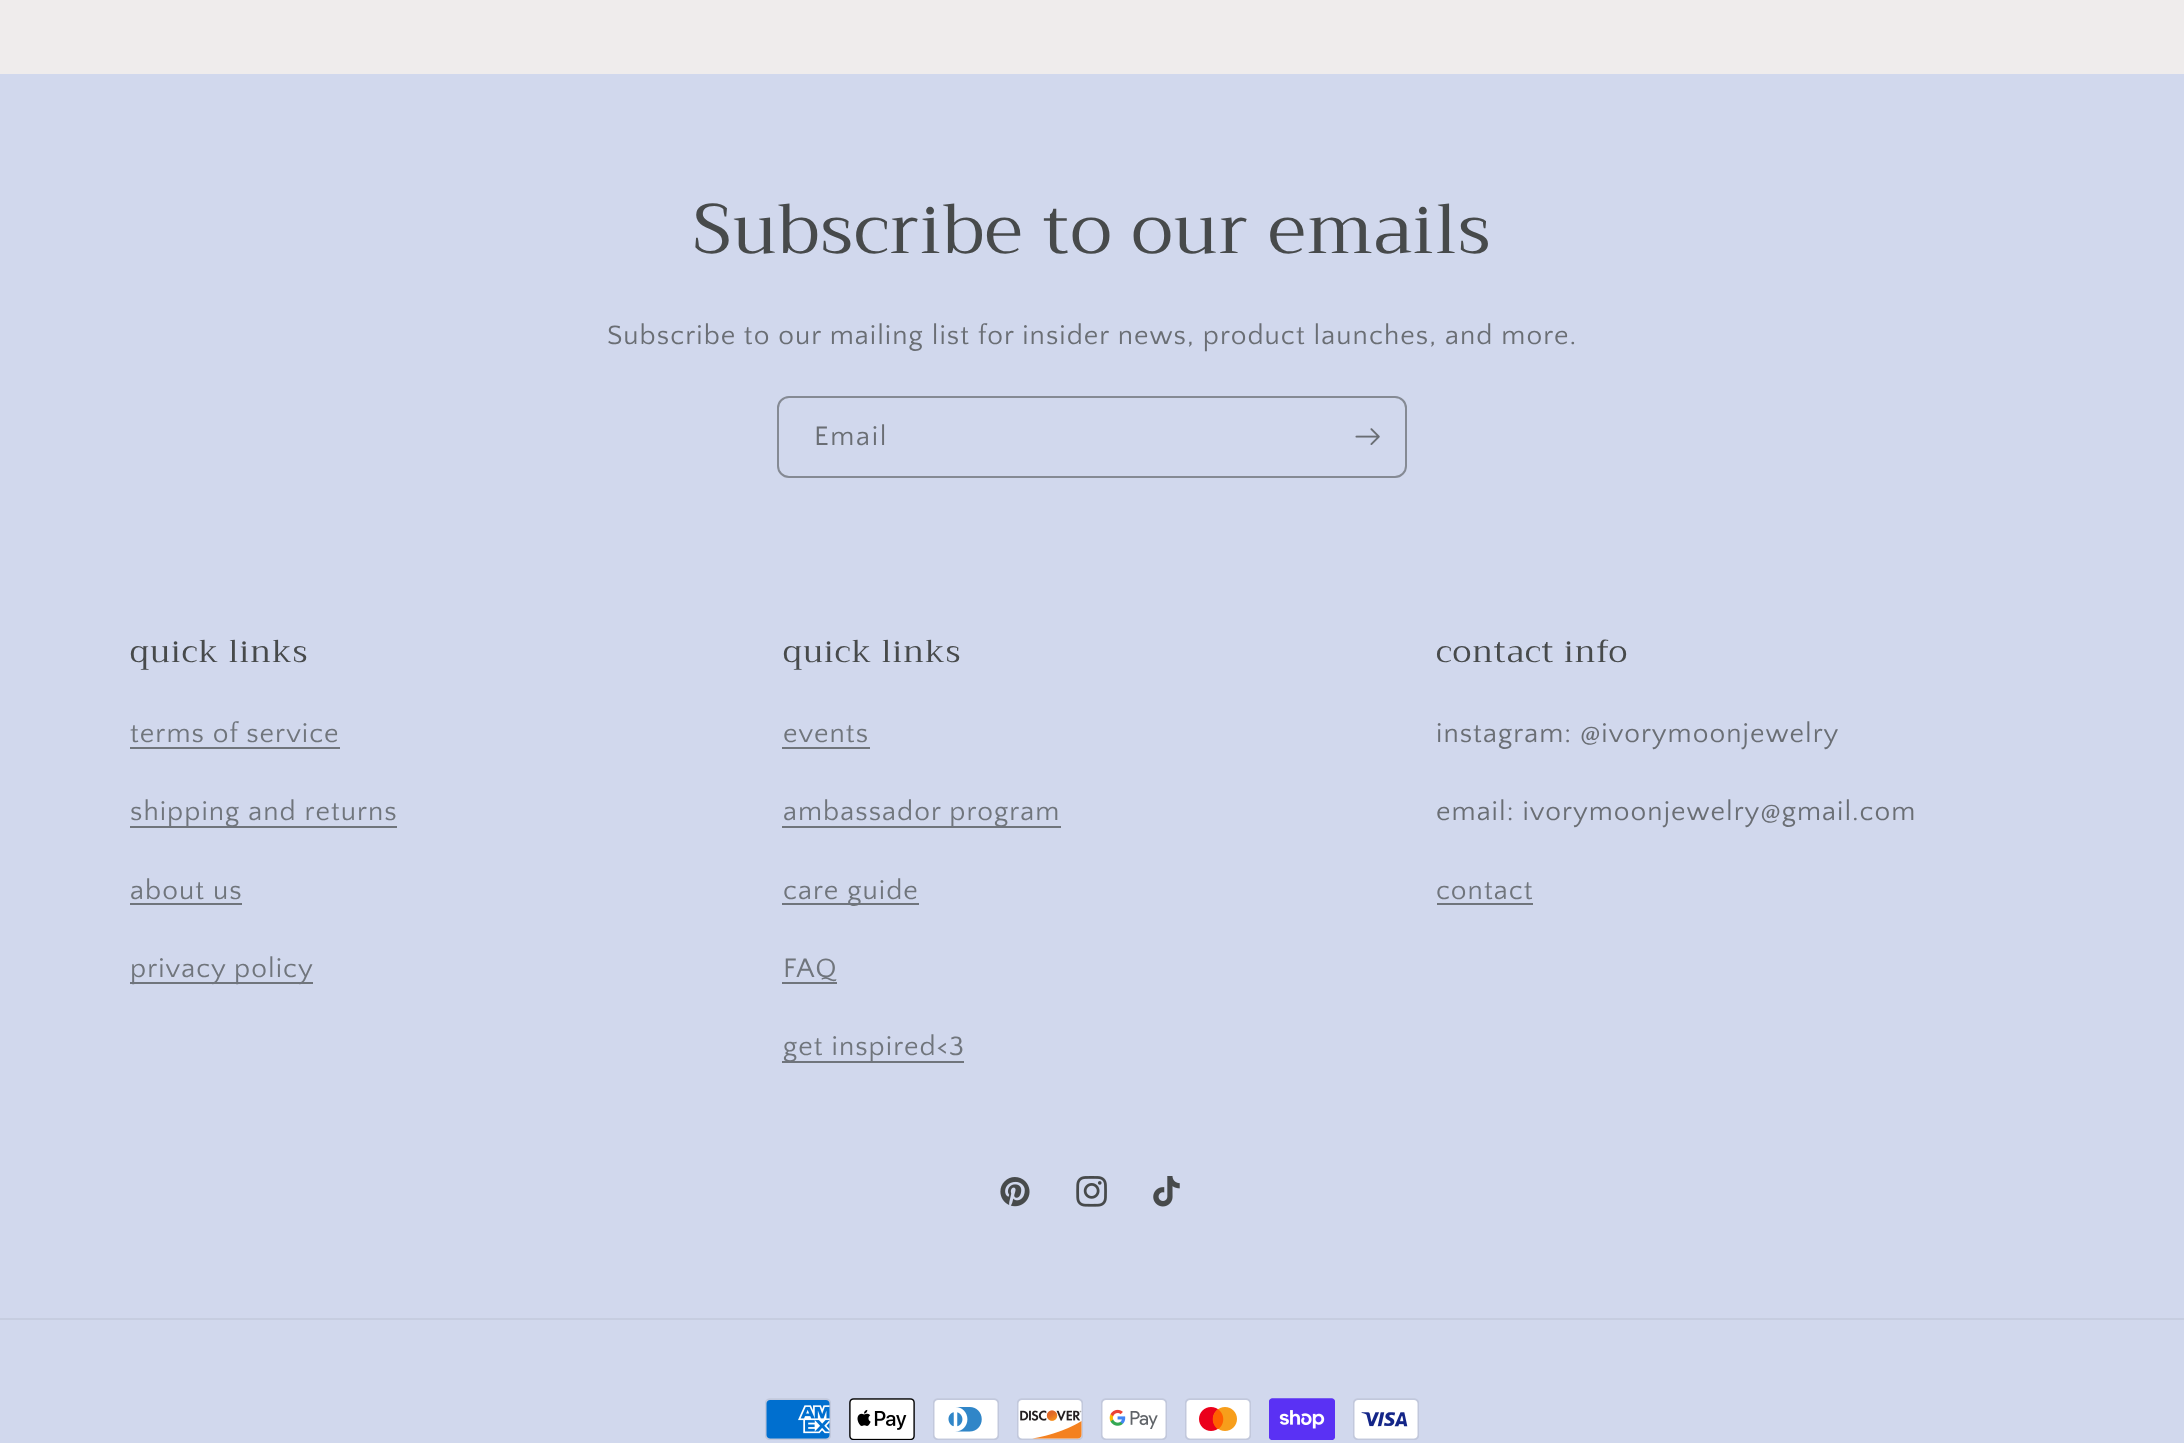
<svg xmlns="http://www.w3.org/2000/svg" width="2184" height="1443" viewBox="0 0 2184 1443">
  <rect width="100%" height="100%" fill="#efecec"/>
  <path d="M0 74h2184v1369H0z" fill="#d1d8ed"/>
  <rect x="778" y="397" width="628" height="80" rx="11" fill="none" stroke="#858a94" stroke-width="2"/>
  <image x="1355" y="428" width="25" height="17" href="img/1.png"/>
  <path d="M130 747h210v2H130z" fill="#70757c"/>
  <path d="M130 826h267v2H130z" fill="#70757c"/>
  <path d="M130 903h112v2H130z" fill="#70757c"/>
  <path d="M130 982h183v2H130z" fill="#70757c"/>
  <path d="M782 747h88v2H782z" fill="#70757c"/>
  <path d="M782 826h279v2H782z" fill="#70757c"/>
  <path d="M782 903h137v2H782z" fill="#70757c"/>
  <path d="M782 982h55v2H782z" fill="#70757c"/>
  <path d="M782 1061h182v2H782z" fill="#70757c"/>
  <path d="M1437 903h96v2H1437z" fill="#70757c"/>
  <image x="1000" y="1177" width="30" height="30" href="img/2.png"/>
  <image x="1076" y="1176" width="31" height="31" href="img/3.png"/>
  <image x="1153" y="1176" width="27" height="31" href="img/4.png"/>
  <path d="M0 1318h2184v2H0z" fill="#c6cde0"/>
  <image x="765" y="1398" width="66" height="42" href="img/5.png"/>
  <image x="849" y="1398" width="66" height="42" href="img/6.png"/>
  <image x="933" y="1398" width="66" height="42" href="img/7.png"/>
  <image x="1017" y="1398" width="66" height="42" href="img/8.png"/>
  <image x="1101" y="1398" width="66" height="42" href="img/9.png"/>
  <image x="1185" y="1398" width="66" height="42" href="img/10.png"/>
  <image x="1269" y="1398" width="66" height="42" href="img/11.png"/>
  <image x="1353" y="1398" width="66" height="42" href="img/12.png"/>
  <text x="693" y="253" font-family="Trirong" font-size="70" letter-spacing="1.05" fill="#474a4b">Subscribe to our emails</text>
  <text x="607" y="344" font-family="Quattrocento Sans" font-size="28" letter-spacing="1.05" fill="#6a6e74">Subscribe to our mailing list for insider news, product launches, and more.</text>
  <text x="814" y="445" font-family="Quattrocento Sans" font-size="28" letter-spacing="1.75" fill="#6a6e74">Email</text>
  <text x="130" y="662" font-family="Trirong" font-size="31.5" letter-spacing="1.05" fill="#474a4b">quick links</text>
  <g font-family="Quattrocento Sans" font-size="28" letter-spacing="1.05" fill="#70757c">
    <text x="130" y="742">terms of service</text>
    <text x="130" y="820">shipping and returns</text>
    <text x="130" y="899">about us</text>
    <text x="130" y="977">privacy policy</text>
  </g>
  <text x="783" y="662" font-family="Trirong" font-size="31.5" letter-spacing="1.05" fill="#474a4b">quick links</text>
  <g font-family="Quattrocento Sans" font-size="28" letter-spacing="1.05" fill="#70757c">
    <text x="783" y="742">events</text>
    <text x="783" y="820">ambassador program</text>
    <text x="783" y="899">care guide</text>
    <text x="783" y="977">FAQ</text>
    <text x="783" y="1055">get inspired&lt;3</text>
  </g>
  <text x="1436" y="662" font-family="Trirong" font-size="31.5" letter-spacing="1.05" fill="#474a4b">contact info</text>
  <g font-family="Quattrocento Sans" font-size="28" letter-spacing="1.05" fill="#6a6e74">
    <text x="1436" y="742">instagram: @ivorymoonjewelry</text>
    <text x="1436" y="820">email: ivorymoonjewelry@gmail.com</text>
  </g>
  <text x="1436" y="899" font-family="Quattrocento Sans" font-size="28" letter-spacing="1.05" fill="#70757c">contact</text>
</svg>
